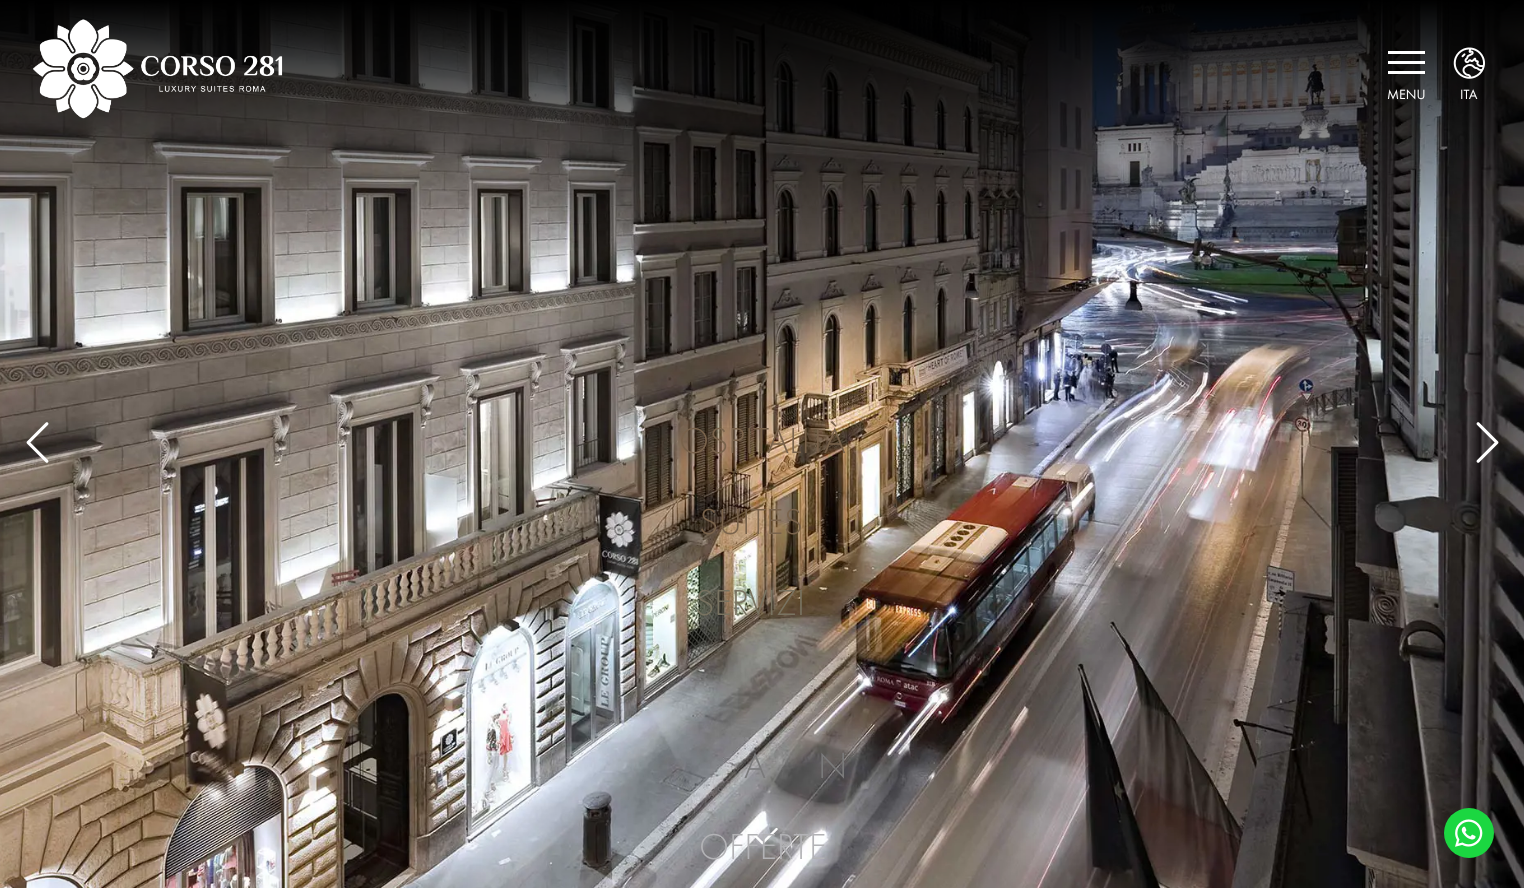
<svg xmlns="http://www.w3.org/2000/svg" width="1524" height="888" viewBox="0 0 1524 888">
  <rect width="100%" height="100%" fill="#fff"/>
  <image x="0" y="0" width="1524" height="888" href="img/1.png"/>
  <image x="26" y="422" width="23" height="41" href="img/2.png"/>
  <image x="1476" y="422" width="23" height="41" href="img/3.png"/>
  <image x="747" y="827" width="31" height="18" href="img/4.png"/>
  <image x="33" y="19" width="250" height="100" href="img/5.png"/>
  <path d="M1388 51h37v3H1388z" fill="#fff"/>
  <path d="M1388 61h37v3H1388z" fill="#fff"/>
  <path d="M1388 71h37v3H1388z" fill="#fff"/>
  <image x="1453" y="47" width="32" height="32" href="img/6.png"/>
  <circle cx="1469" cy="833" r="25" fill="#1bd741"/>
  <image x="1455" y="819" width="28" height="28" href="img/7.png"/>
  <g font-family="Futura PT" font-size="14" fill="#fff">
    <text x="1387" y="99">MENU</text>
    <text x="1460" y="99">ITA</text>
  </g>
  <g font-family="Futura PT" font-size="37.5" font-weight="300" fill="#79634c">
    <text x="679" y="453">OSPITALITÀ</text>
    <text x="699" y="534">SUITES</text>
  </g>
  <text x="695" y="615" font-family="Futura PT" font-size="37.5" font-weight="300" fill="#797361">SERVIZI</text>
  <g font-family="Futura PT" font-size="37.5" font-weight="300" fill="#7a7a7b">
    <text x="744" y="778">A</text>
    <text x="818" y="778">N</text>
  </g>
  <text x="699" y="859" font-family="Futura PT" font-size="37.5" font-weight="300" fill="#b2b2b5">OFFERTE</text>
</svg>
